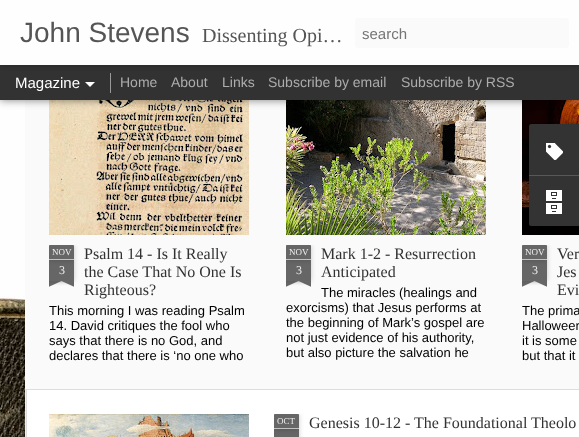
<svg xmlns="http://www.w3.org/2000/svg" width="579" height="437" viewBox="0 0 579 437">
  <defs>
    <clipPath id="clip1"><path d="M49 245h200v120H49z"/></clipPath>
    <clipPath id="clip2"><path d="M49 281h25v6H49z"/></clipPath>
    <clipPath id="clip3"><path d="M49 281h25v6H49z"/></clipPath>
    <clipPath id="clip4"><path d="M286 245h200v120H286z"/></clipPath>
    <clipPath id="clip5"><path d="M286 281h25v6H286z"/></clipPath>
    <clipPath id="clip6"><path d="M286 281h25v6H286z"/></clipPath>
    <clipPath id="clip7"><path d="M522 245h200v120H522z"/></clipPath>
    <clipPath id="clip8"><path d="M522 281h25v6H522z"/></clipPath>
    <clipPath id="clip9"><path d="M522 281h25v6H522z"/></clipPath>
    <clipPath id="clip10"><path d="M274 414h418v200H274z"/></clipPath>
  </defs>
  <rect width="100%" height="100%" fill="#fff"/>
  <image x="0" y="100" width="25" height="337" href="img/1.png"/>
  <path d="M25 100h554v289H25z" fill="#fafafa"/>
  <image x="49" y="100" width="200" height="135" href="img/5.png"/>
  <image x="286" y="100" width="200" height="135" href="img/6.png"/>
  <image x="522" y="100" width="57" height="135" href="img/7.png"/>
  <path d="M0 65h579v35H0z" fill="#00000080" filter="blur(4px)"/>
  <path d="M0 65h579v35H0z" fill="#323232"/>
  <path d="M110 73h1v20H110z" fill="#999"/>
  <path d="M0 0h579v65H0z" fill="#0000004d" filter="blur(2.5px)"/>
  <path d="M0 0h579v65H0z" fill="#fefefe"/>
  <rect x="355" y="18" width="214" height="30" rx="3" fill="#fafafa"/>
  <path d="M85 82H95L90 87Z" fill="#fff"/>
  <rect x="529" y="125" width="50" height="102" rx="2" fill="#0000004d" filter="blur(1.5px)"/>
  <path d="M531 124H579V175H529V126C529 125 530 124 531 124Z" fill="#333"/>
  <image x="546" y="143" width="17" height="17" href="img/2.png"/>
  <path d="M529 175H579V226H531C530 226 529 225 529 224Z" fill="#333"/>
  <path d="M529 175h50v1H529z" fill="#585858"/>
  <image x="546" y="190" width="16" height="24" href="img/3.png"/>
  <image x="25" y="390" width="2" height="47" href="img/4.png"/>
  <path d="M25 389h554v1H25z" fill="#ddd"/>
  <g clip-path="url(#clip1)">
    <path d="M49 260h25v21H49z" fill="#00000033" filter="blur(2.5px)"/>
  </g>
  <path d="M49 260h25v21H49z" fill="#666"/>
  <g clip-path="url(#clip1)">
    <rect x="49" y="245" width="25" height="15" rx="1" fill="#00000033" filter="blur(2.5px)"/>
  </g>
  <path d="M50 245H73C73.5 245 74 245.5 74 246V260H49V246C49 245.5 49.5 245 50 245Z" fill="#666"/>
  <path d="M49 259h25v1H49z" fill="#c2c2c2"/>
  <g clip-path="url(#clip2)">
    <path d="M43 274h40v6H43z" fill="#00000033" filter="blur(2.5px)"/>
  </g>
  <g clip-path="url(#clip3)">
    <path d="M43.5 282.5L80 266L82.5 271.5L46 288Z" fill="#666"/>
  </g>
  <g clip-path="url(#clip2)">
    <path d="M40 274h40v6H40z" fill="#00000033" filter="blur(2.5px)"/>
  </g>
  <g clip-path="url(#clip3)">
    <path d="M43 266L79.5 282.5L77 288L40.5 271.5Z" fill="#666"/>
  </g>
  <g clip-path="url(#clip4)">
    <path d="M286 260h25v21H286z" fill="#00000033" filter="blur(2.5px)"/>
  </g>
  <path d="M286 260h25v21H286z" fill="#666"/>
  <g clip-path="url(#clip4)">
    <rect x="286" y="245" width="25" height="15" rx="1" fill="#00000033" filter="blur(2.5px)"/>
  </g>
  <path d="M287 245H310C310.5 245 311 245.5 311 246V260H286V246C286 245.5 286.5 245 287 245Z" fill="#666"/>
  <path d="M286 259h25v1H286z" fill="#c2c2c2"/>
  <g clip-path="url(#clip5)">
    <path d="M280 274h40v6H280z" fill="#00000033" filter="blur(2.5px)"/>
  </g>
  <g clip-path="url(#clip6)">
    <path d="M280.5 282.5L317 266L319.5 271.5L283 288Z" fill="#666"/>
  </g>
  <g clip-path="url(#clip5)">
    <path d="M277 274h40v6H277z" fill="#00000033" filter="blur(2.5px)"/>
  </g>
  <g clip-path="url(#clip6)">
    <path d="M280 266L316.5 282.5L314 288L277.5 271.5Z" fill="#666"/>
  </g>
  <g clip-path="url(#clip7)">
    <path d="M522 260h25v21H522z" fill="#00000033" filter="blur(2.5px)"/>
  </g>
  <path d="M522 260h25v21H522z" fill="#666"/>
  <g clip-path="url(#clip7)">
    <rect x="522" y="245" width="25" height="15" rx="1" fill="#00000033" filter="blur(2.5px)"/>
  </g>
  <path d="M523 245H546C546.5 245 547 245.5 547 246V260H522V246C522 245.5 522.5 245 523 245Z" fill="#666"/>
  <path d="M522 259h25v1H522z" fill="#c2c2c2"/>
  <g clip-path="url(#clip8)">
    <path d="M516 274h40v6H516z" fill="#00000033" filter="blur(2.5px)"/>
  </g>
  <g clip-path="url(#clip9)">
    <path d="M516.5 282.5L553 266L555.5 271.5L519 288Z" fill="#666"/>
  </g>
  <g clip-path="url(#clip8)">
    <path d="M513 274h40v6H513z" fill="#00000033" filter="blur(2.5px)"/>
  </g>
  <g clip-path="url(#clip9)">
    <path d="M516 266L552.5 282.5L550 288L513.5 271.5Z" fill="#666"/>
  </g>
  <image x="49" y="414" width="200" height="23" href="img/8.png"/>
  <g clip-path="url(#clip10)">
    <path d="M274 429h25v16H274z" fill="#00000033" filter="blur(2.5px)"/>
  </g>
  <path d="M274 429h25v8H274z" fill="#666"/>
  <g clip-path="url(#clip10)">
    <rect x="274" y="414" width="25" height="15" rx="1" fill="#00000033" filter="blur(2.5px)"/>
  </g>
  <path d="M275 414H298C298.5 414 299 414.5 299 415V429H274V415C274 414.5 274.5 414 275 414Z" fill="#666"/>
  <path d="M274 428h25v1H274z" fill="#c2c2c2"/>
  <text x="20" y="42" font-family="Liberation Sans" font-size="28" fill="#555">John Stevens</text>
  <text x="202" y="42" font-family="Liberation Serif" font-size="20" fill="#555">Dissenting Opi…</text>
  <text x="362" y="39" font-family="Liberation Sans" font-size="15" fill="#757575">search</text>
  <text x="15" y="88" font-family="Liberation Sans" font-size="15" fill="#fff">Magazine</text>
  <g font-family="Liberation Sans" font-size="14" fill="#adadad">
    <text x="120" y="87">Home</text>
    <text x="171" y="87">About</text>
    <text x="222" y="87">Links</text>
    <text x="268" y="87">Subscribe by email</text>
    <text x="401" y="87">Subscribe by RSS</text>
  </g>
  <text x="52" y="255" font-family="Liberation Serif" font-size="9" fill="#eee">NOV</text>
  <text x="59" y="274" font-family="Liberation Serif" font-size="12" fill="#eee">3</text>
  <g font-family="Liberation Serif" font-size="16" fill="#323232">
    <text x="84" y="259">Psalm 14 - Is It Really</text>
    <text x="84" y="277">the Case That No One Is</text>
    <text x="84" y="295">Righteous?</text>
  </g>
  <g font-family="Liberation Sans" font-size="13" fill="#000">
    <text x="49" y="315">This morning I was reading Psalm</text>
    <text x="49" y="330">14. David critiques the fool who</text>
    <text x="49" y="345">says that there is no God, and</text>
    <text x="49" y="360">declares that there is ‘no one who</text>
  </g>
  <text x="289" y="255" font-family="Liberation Serif" font-size="9" fill="#eee">NOV</text>
  <text x="296" y="274" font-family="Liberation Serif" font-size="12" fill="#eee">3</text>
  <g font-family="Liberation Serif" font-size="16" fill="#323232">
    <text x="321" y="259">Mark 1-2 - Resurrection</text>
    <text x="321" y="277">Anticipated</text>
  </g>
  <g font-family="Liberation Sans" font-size="13" fill="#000">
    <text x="321" y="297">The miracles (healings and</text>
    <text x="286" y="312">exorcisms) that Jesus performs at</text>
    <text x="286" y="327">the beginning of Mark’s gospel are</text>
    <text x="286" y="342">not just evidence of his authority,</text>
    <text x="286" y="357">but also picture the salvation he</text>
  </g>
  <text x="525" y="255" font-family="Liberation Serif" font-size="9" fill="#eee">NOV</text>
  <text x="532" y="274" font-family="Liberation Serif" font-size="12" fill="#eee">3</text>
  <g font-family="Liberation Serif" font-size="16" fill="#323232">
    <text x="557" y="259">Ver</text>
    <text x="557" y="277">Jes</text>
    <text x="557" y="295">Evi</text>
  </g>
  <g font-family="Liberation Sans" font-size="13" fill="#000">
    <text x="522" y="315">The prima</text>
    <text x="522" y="330">Halloween</text>
    <text x="522" y="345">it is some</text>
    <text x="522" y="360">but that it</text>
  </g>
  <text x="277" y="424" font-family="Liberation Serif" font-size="9" fill="#eee">OCT</text>
  <text x="309" y="428" font-family="Liberation Serif" font-size="16" fill="#323232">Genesis 10-12 - The Foundational Theolo</text>
</svg>
